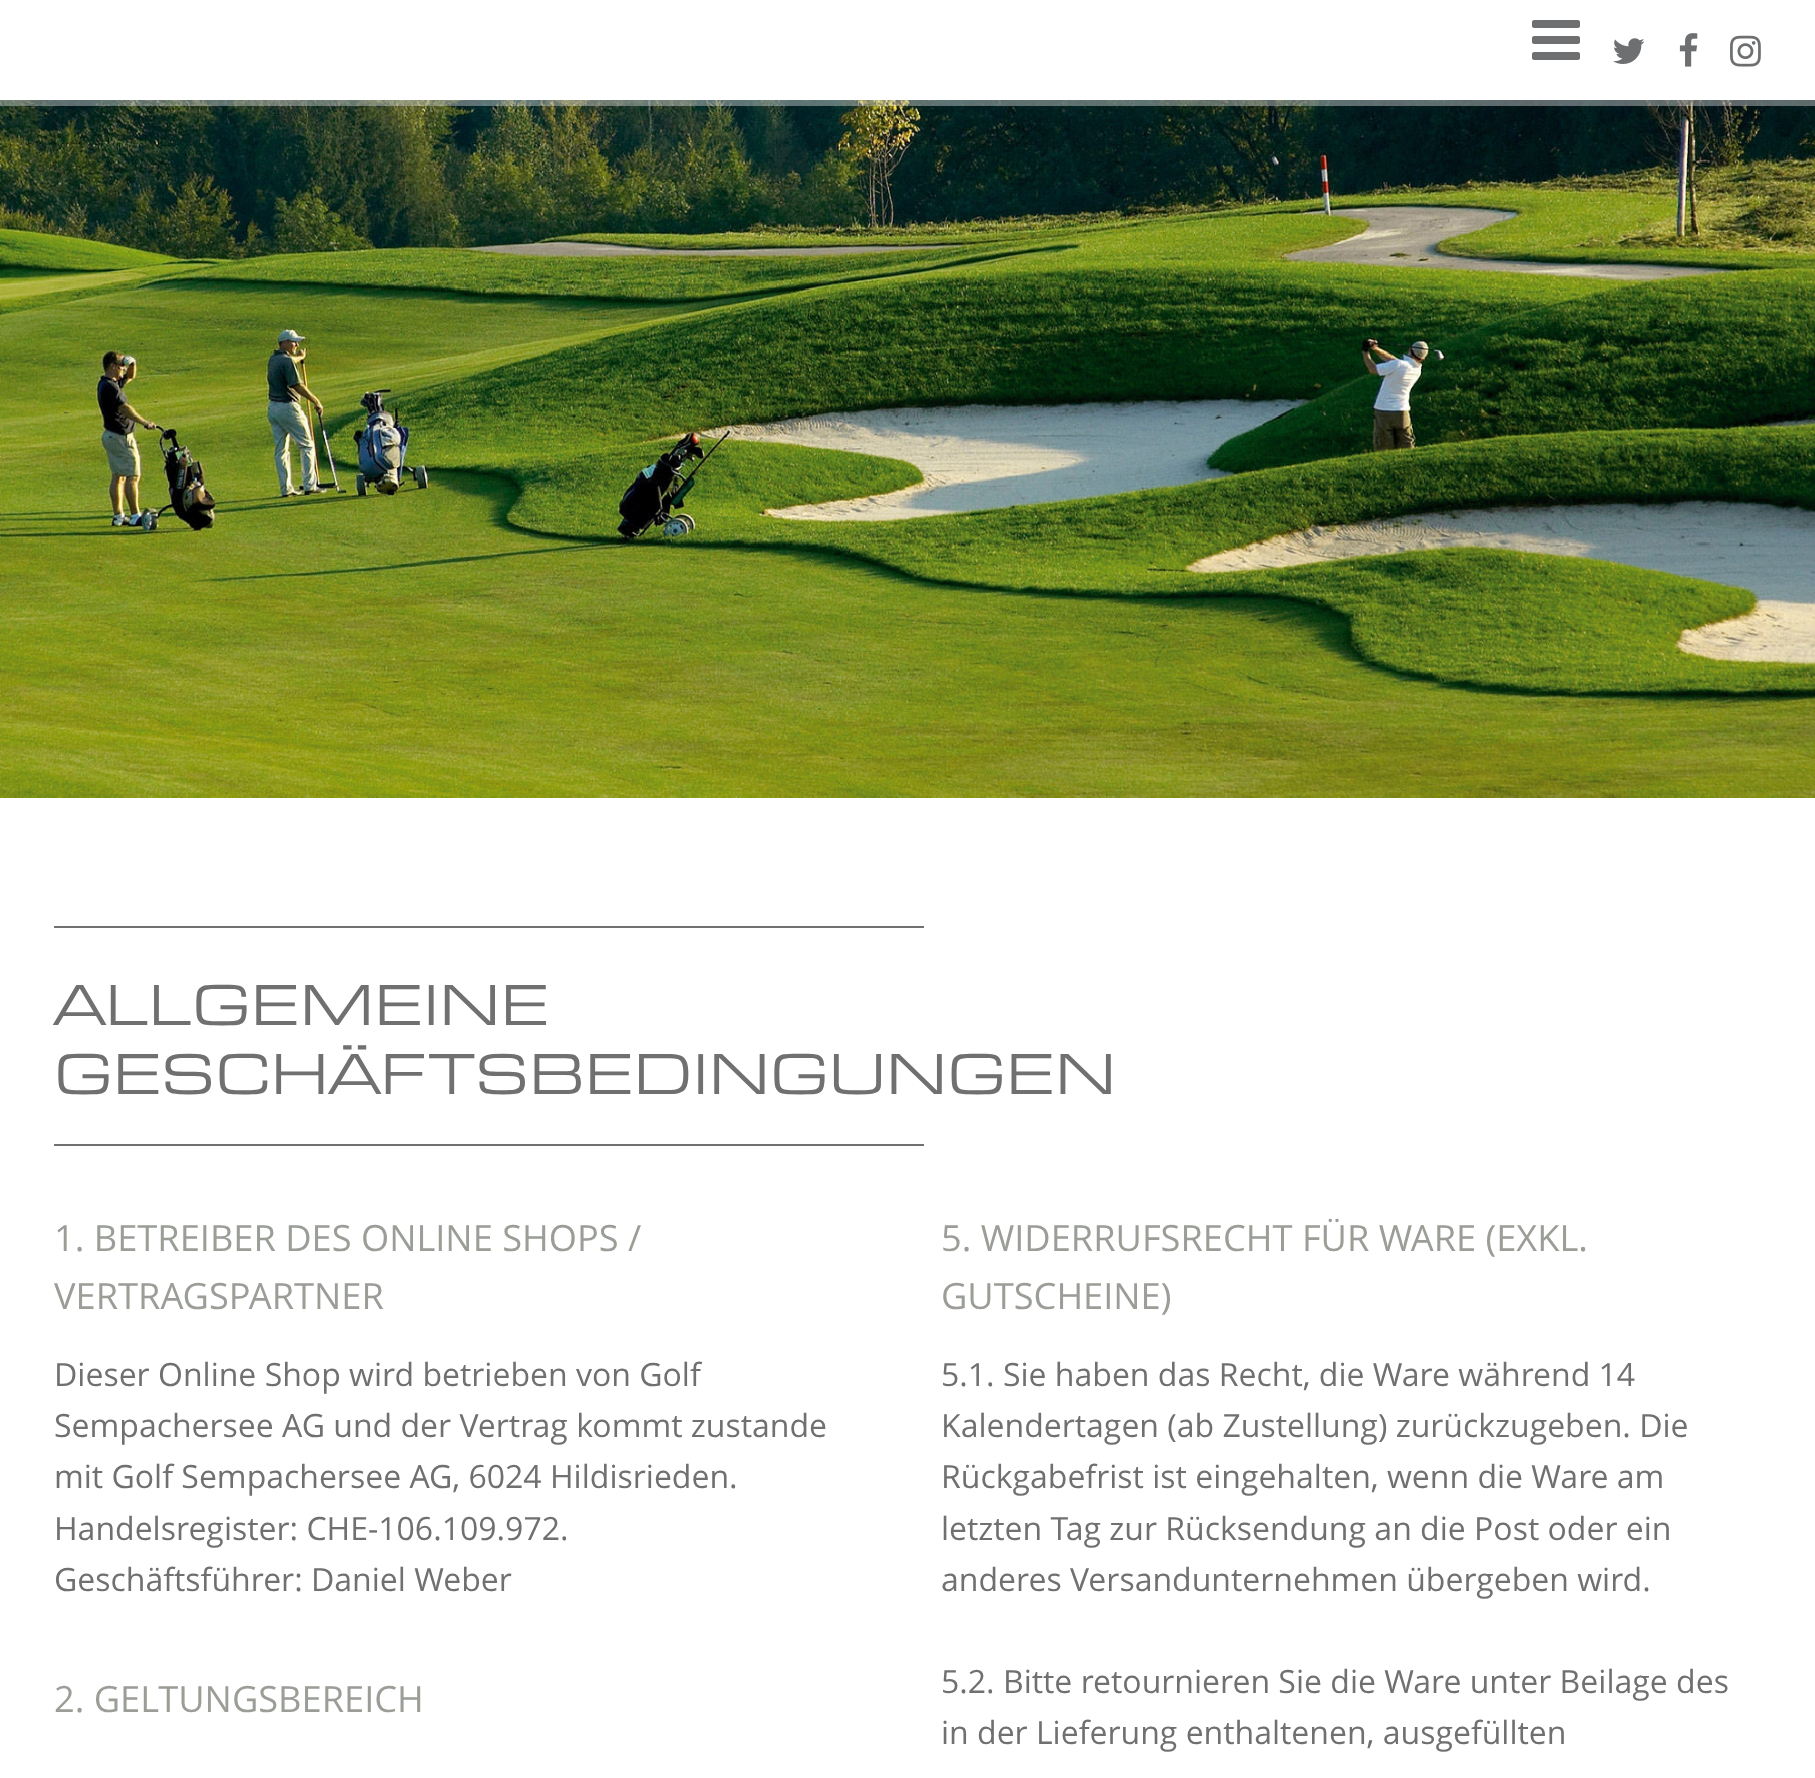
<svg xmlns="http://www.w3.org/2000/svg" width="1815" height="1778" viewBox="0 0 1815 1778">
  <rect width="100%" height="100%" fill="#fff"/>
  <image x="0" y="100" width="1815" height="698" href="img/5.png"/>
  <path d="M0 100h1815v6H0z" fill="#ebebeb66"/>
  <image x="1532" y="20" width="48" height="40" href="img/1.png"/>
  <image x="1613" y="38" width="32" height="26" href="img/2.png"/>
  <image x="1679" y="33" width="19" height="34" href="img/3.png"/>
  <image x="1730" y="35" width="31" height="32" href="img/4.png"/>
  <path d="M54 926h870v2H54z" fill="#707070"/>
  <path d="M54 1144h870v2H54z" fill="#707070"/>
  <g font-family="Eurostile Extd" font-size="59.8" fill="#707070">
    <text x="54" y="1025">ALLGEMEINE</text>
    <text x="54" y="1094">GESCHÄFTSBEDINGUNGEN</text>
  </g>
  <g font-family="Open Sans" font-size="36.2" fill="#9b9e97">
    <text x="54" y="1251">1. BETREIBER DES ONLINE SHOPS /</text>
    <text x="54" y="1309">VERTRAGSPARTNER</text>
  </g>
  <g font-family="Open Sans" font-size="32" fill="#707070">
    <text x="54" y="1386">Dieser Online Shop wird betrieben von Golf</text>
    <text x="54" y="1437">Sempachersee AG und der Vertrag kommt zustande</text>
    <text x="54" y="1488">mit Golf Sempachersee AG, 6024 Hildisrieden.</text>
    <text x="54" y="1540">Handelsregister: CHE-106.109.972.</text>
    <text x="54" y="1591">Geschäftsführer: Daniel Weber</text>
  </g>
  <g font-family="Open Sans" font-size="36.2" fill="#9b9e97">
    <text x="54" y="1712">2. GELTUNGSBEREICH</text>
    <text x="941" y="1251">5. WIDERRUFSRECHT FÜR WARE (EXKL.</text>
    <text x="941" y="1309">GUTSCHEINE)</text>
  </g>
  <g font-family="Open Sans" font-size="32" fill="#707070">
    <text x="941" y="1386">5.1. Sie haben das Recht, die Ware während 14</text>
    <text x="941" y="1437">Kalendertagen (ab Zustellung) zurückzugeben. Die</text>
    <text x="941" y="1488">Rückgabefrist ist eingehalten, wenn die Ware am</text>
    <text x="941" y="1540">letzten Tag zur Rücksendung an die Post oder ein</text>
    <text x="941" y="1591">anderes Versandunternehmen übergeben wird.</text>
    <text x="941" y="1693">5.2. Bitte retournieren Sie die Ware unter Beilage des</text>
    <text x="941" y="1744">in der Lieferung enthaltenen, ausgefüllten</text>
  </g>
</svg>
